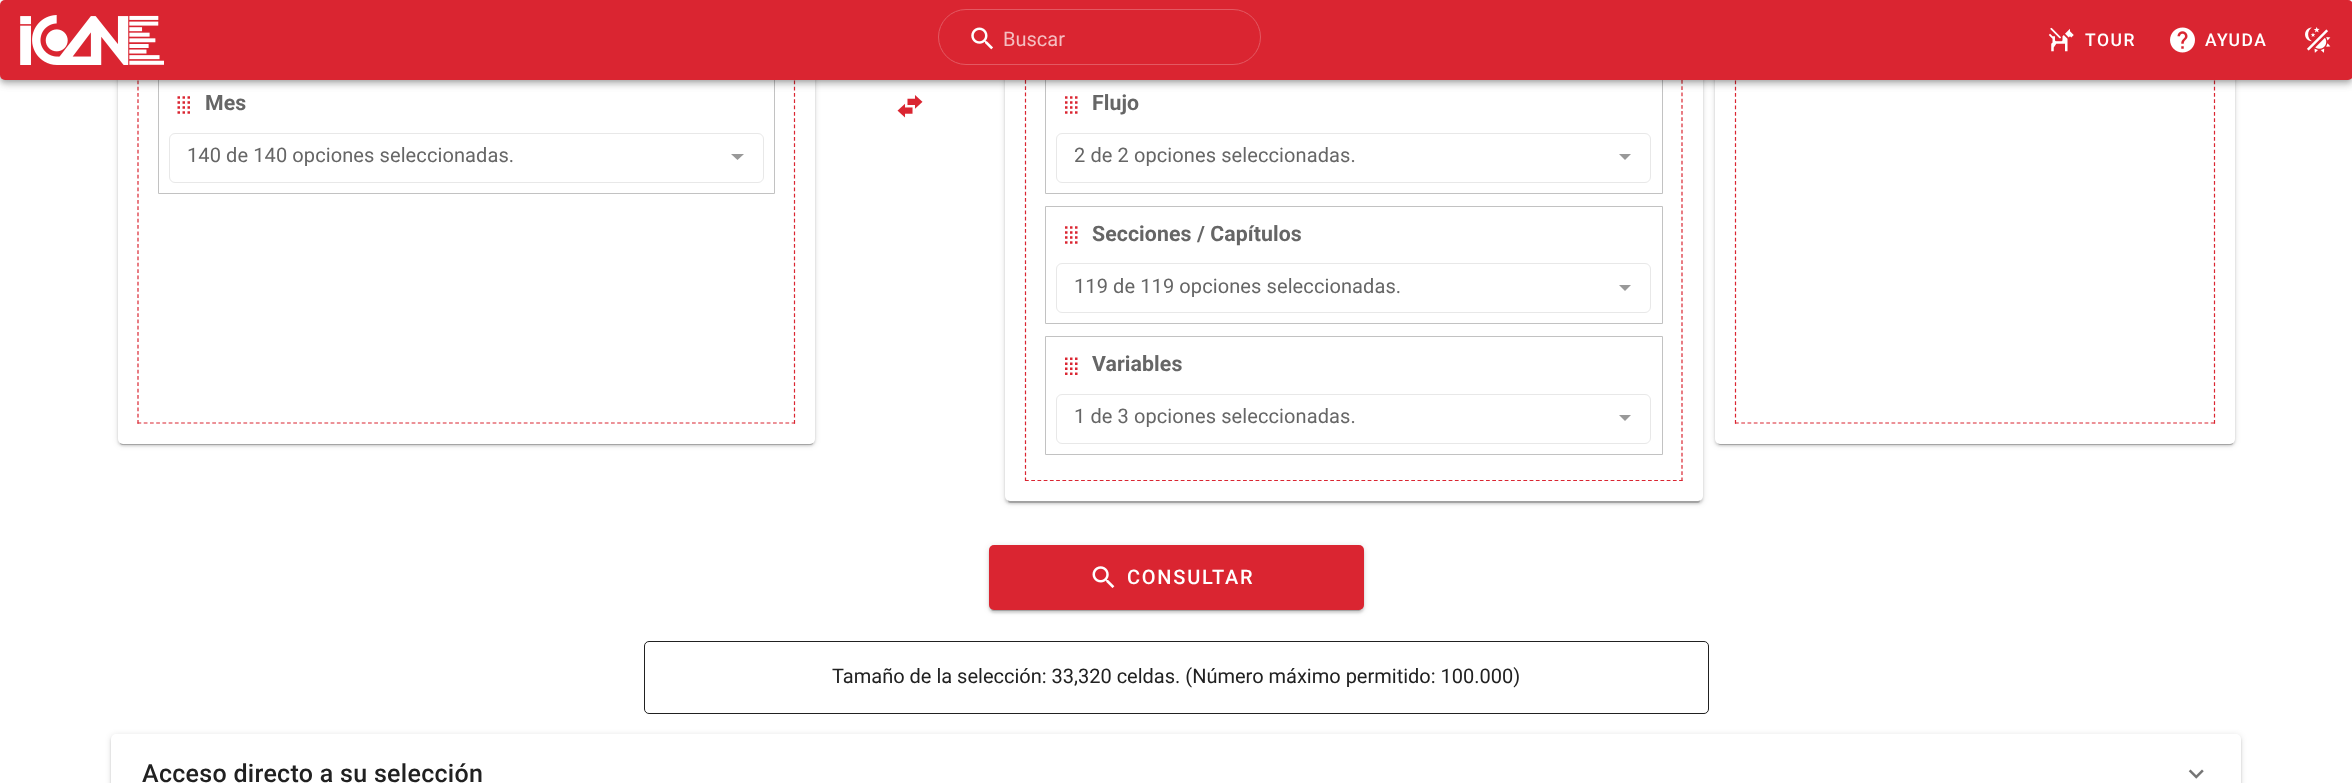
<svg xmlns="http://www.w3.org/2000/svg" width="2352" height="783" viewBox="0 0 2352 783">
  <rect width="100%" height="100%" fill="#fff"/>
  <rect x="118" y="-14" width="697" height="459" rx="5" fill="#0000001f" filter="blur(3px)"/>
  <rect x="118" y="-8" width="697" height="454" rx="5" fill="#00000024" filter="blur(1px)"/>
  <rect x="120" y="-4" width="693" height="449" rx="2.5" fill="#00000033" filter="blur(0.5px)"/>
  <rect x="118" y="-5" width="697" height="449" rx="5" fill="#fff"/>
  <path d="M794.5 49V424" fill="none" stroke="#da2531" stroke-width="1.2" stroke-dasharray="3.75 2.54"/>
  <path d="M137.5 423H795" fill="none" stroke="#da2531" stroke-width="1.2" stroke-dasharray="3.75 2.48"/>
  <path d="M138 49V424" fill="none" stroke="#da2531" stroke-width="1.2" stroke-dasharray="3.75 2.54"/>
  <path d="M158.5 75.5h616v118H158.5z" fill="none" stroke="#c2c2c2"/>
  <image x="177" y="96" width="13" height="18" href="img/6.png"/>
  <image x="897" y="95" width="26" height="23" href="img/7.png"/>
  <rect x="1005" y="-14" width="698" height="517" rx="5" fill="#0000001f" filter="blur(3px)"/>
  <rect x="1005" y="-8" width="698" height="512" rx="5" fill="#00000024" filter="blur(1px)"/>
  <rect x="1008" y="-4" width="692" height="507" rx="2.5" fill="#00000033" filter="blur(0.5px)"/>
  <rect x="1005" y="-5" width="698" height="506" rx="5" fill="#fff"/>
  <path d="M1682 49V481" fill="none" stroke="#da2531" stroke-width="1.2" stroke-dasharray="3.75 2.46"/>
  <path d="M1025 480.5H1682.5" fill="none" stroke="#da2531" stroke-width="1.2" stroke-dasharray="3.75 2.48"/>
  <path d="M1025.5 49V481" fill="none" stroke="#da2531" stroke-width="1.2" stroke-dasharray="3.75 2.46"/>
  <path d="M1045.5 75.5h617v118H1045.5z" fill="none" stroke="#c2c2c2"/>
  <image x="1065" y="96" width="13" height="18" href="img/8.png"/>
  <rect x="1715" y="-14" width="520" height="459" rx="5" fill="#0000001f" filter="blur(3px)"/>
  <rect x="1715" y="-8" width="520" height="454" rx="5" fill="#00000024" filter="blur(1px)"/>
  <rect x="1718" y="-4" width="515" height="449" rx="2.5" fill="#00000033" filter="blur(0.5px)"/>
  <rect x="1715" y="-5" width="520" height="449" rx="5" fill="#fff"/>
  <path d="M2214.5 49V424" fill="none" stroke="#da2531" stroke-width="1.2" stroke-dasharray="3.75 2.54"/>
  <path d="M1735 423H2215" fill="none" stroke="#da2531" stroke-width="1.2" stroke-dasharray="3.75 2.51"/>
  <path d="M1735.5 49V424" fill="none" stroke="#da2531" stroke-width="1.2" stroke-dasharray="3.75 2.54"/>
  <rect y="1" width="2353" height="80" rx="5" fill="#0000001f" filter="blur(6px)"/>
  <rect y="5" width="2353" height="80" rx="5" fill="#00000024" filter="blur(3px)"/>
  <rect x="1" y="4" width="2350" height="77" rx="4" fill="#00000033" filter="blur(2.5px)"/>
  <rect width="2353" height="80" rx="5" fill="#da2531"/>
  <image x="20" y="15" width="144" height="50" href="img/1.png"/>
  <image x="971" y="27" width="22" height="23" href="img/2.png"/>
  <rect x="938.5" y="9.5" width="322" height="55" rx="27.5" fill="none" stroke="#e35962"/>
  <image x="2048" y="27" width="26" height="25" href="img/3.png"/>
  <image x="2170" y="27" width="25" height="26" href="img/4.png"/>
  <image x="2305" y="27" width="26" height="26" href="img/5.png"/>
  <rect x="169.5" y="133.5" width="594" height="49" rx="5.5" fill="none" stroke="#e8e8e8"/>
  <path d="M731 154H744L737.5 160Z" fill="#999"/>
  <rect x="1056.5" y="133.5" width="594" height="49" rx="5.5" fill="none" stroke="#e8e8e8"/>
  <path d="M1619 154H1631L1625 160Z" fill="#999"/>
  <path d="M1045.5 206.5h617v117H1045.5z" fill="none" stroke="#c2c2c2"/>
  <image x="1065" y="226" width="13" height="18" href="img/8.png"/>
  <rect x="1056.5" y="263.5" width="594" height="49" rx="5.5" fill="none" stroke="#e8e8e8"/>
  <path d="M1619 285H1631L1625 291Z" fill="#999"/>
  <path d="M1045.5 336.5h617v118H1045.5z" fill="none" stroke="#c2c2c2"/>
  <image x="1065" y="357" width="13" height="18" href="img/9.png"/>
  <rect x="1056.5" y="394.5" width="594" height="49" rx="5.5" fill="none" stroke="#e8e8e8"/>
  <path d="M1619 415H1631L1625 421Z" fill="#999"/>
  <rect x="989" y="546" width="375" height="65" rx="5" fill="#0000001f" filter="blur(3px)"/>
  <rect x="989" y="548" width="375" height="65" rx="5" fill="#00000024" filter="blur(1px)"/>
  <rect x="991" y="551" width="370" height="60" rx="2.5" fill="#00000033" filter="blur(0.5px)"/>
  <rect x="989" y="545" width="375" height="65" rx="5" fill="#da2531"/>
  <image x="1092" y="566" width="23" height="22" href="img/10.png"/>
  <rect x="644.5" y="641.5" width="1064" height="72" rx="4.5" fill="none" stroke="#212121"/>
  <rect x="111" y="735" width="2130" height="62" rx="5" fill="#0000001f" filter="blur(3px)"/>
  <rect x="111" y="736" width="2130" height="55" rx="5" fill="#00000024" filter="blur(1px)"/>
  <rect x="111" y="734" width="2130" height="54" rx="5" fill="#fff"/>
  <image x="2188" y="769" width="16" height="10" href="img/11.png"/>
  <text x="1003" y="46" font-family="Roboto" font-size="20" fill="#f4bec1">Buscar</text>
  <g font-family="Roboto" font-size="17.5" font-weight="500" letter-spacing="1.5" fill="#fff">
    <text x="2085" y="46">TOUR</text>
    <text x="2205" y="46">AYUDA</text>
  </g>
  <text x="205" y="110" font-family="Roboto" font-size="21.25" font-weight="bold" letter-spacing="0.1" fill="#666">Mes</text>
  <text x="187" y="162" font-family="Roboto" font-size="20" letter-spacing="0.1" fill="#666">140 de 140 opciones seleccionadas.</text>
  <text x="1092" y="110" font-family="Roboto" font-size="21.25" font-weight="bold" letter-spacing="0.1" fill="#666">Flujo</text>
  <text x="1074" y="162" font-family="Roboto" font-size="20" letter-spacing="0.1" fill="#666">2 de 2 opciones seleccionadas.</text>
  <text x="1092" y="241" font-family="Roboto" font-size="21.25" font-weight="bold" letter-spacing="0.1" fill="#666">Secciones / Capítulos</text>
  <text x="1074" y="293" font-family="Roboto" font-size="20" letter-spacing="0.1" fill="#666">119 de 119 opciones seleccionadas.</text>
  <text x="1092" y="371" font-family="Roboto" font-size="21.25" font-weight="bold" letter-spacing="0.1" fill="#666">Variables</text>
  <text x="1074" y="423" font-family="Roboto" font-size="20" letter-spacing="0.1" fill="#666">1 de 3 opciones seleccionadas.</text>
  <text x="1127" y="584" font-family="Roboto" font-size="20" font-weight="500" letter-spacing="1.75" fill="#fff">CONSULTAR</text>
  <text x="832" y="683" font-family="Roboto" font-size="20" fill="#212121">Tamaño de la selección: 33,320 celdas. (Número máximo permitido: 100.000)</text>
  <text x="142" y="782" font-family="Roboto" font-size="25" font-weight="500" letter-spacing="0.3" fill="#212121">Acceso directo a su selección</text>
</svg>
